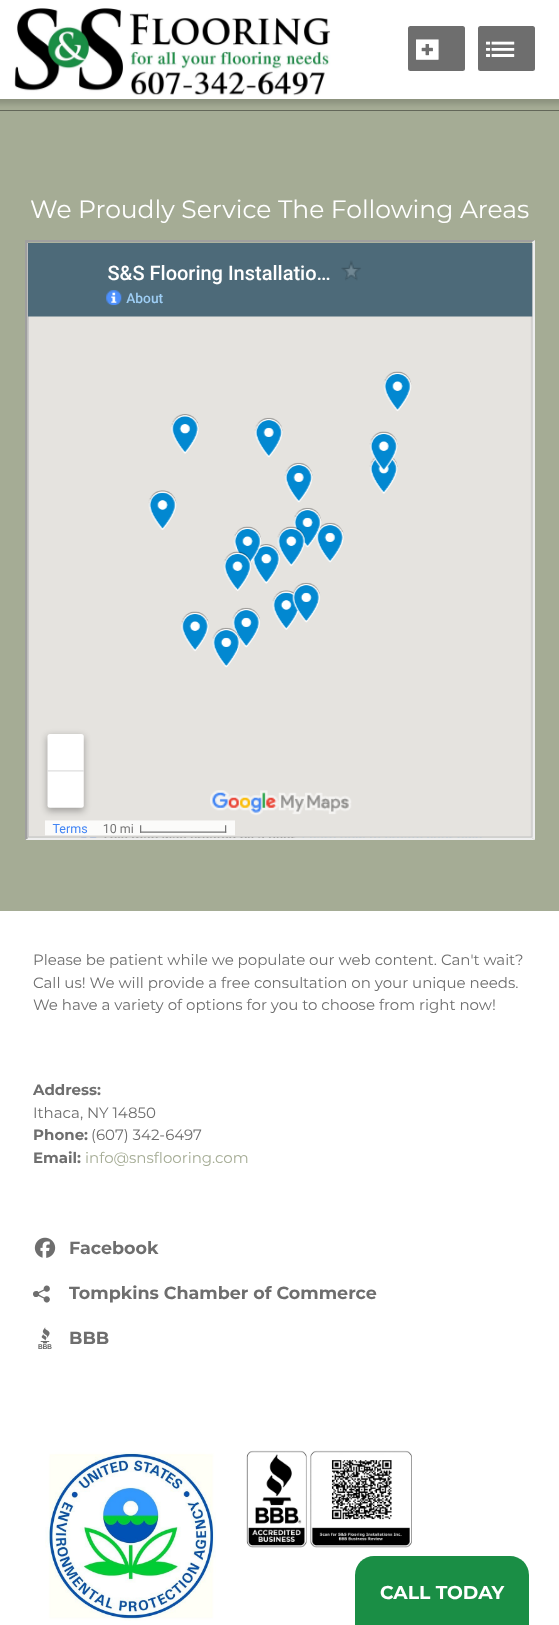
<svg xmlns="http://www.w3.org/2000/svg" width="559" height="1625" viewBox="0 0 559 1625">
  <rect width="100%" height="100%" fill="#a5ac95"/>
  <path d="M0 110h559v1H0z" fill="#636759"/>
  <path d="M-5 -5h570v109H-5z" fill="#00000026" filter="blur(2.5px)"/>
  <path d="M0 0h559v99H0z" fill="#fff"/>
  <image x="14" y="8" width="317" height="88" href="img/1.png"/>
  <rect x="408" y="26" width="57" height="45" rx="2.5" fill="#6e6e6e"/>
  <rect x="478" y="26" width="57" height="45" rx="2.5" fill="#6e6e6e"/>
  <path d="M25 240H535L532 242H28Z" fill="#9f9f9f"/>
  <path d="M535 240V840L532 838V242Z" fill="#eee"/>
  <path d="M535 840H25L28 838H532Z" fill="#eee"/>
  <path d="M25 840V240L28 242V838Z" fill="#9f9f9f"/>
  <image x="27" y="242" width="506" height="596" href="img/2.png"/>
  <path d="M0 911h559v714H0z" fill="#fff"/>
  <image x="34" y="1237" width="22" height="21" href="img/3.png"/>
  <image x="38" y="1327" width="14" height="22" href="img/4.png"/>
  <image x="45" y="1452" width="171" height="169" href="img/5.png"/>
  <image x="246" y="1450" width="166" height="98" href="img/6.png"/>
  <rect x="355" y="1556" width="174" height="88" rx="19" fill="#1a8e45"/>
  <g font-family="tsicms" font-size="40" fill="#fff">
    <text x="416" y="67">!</text>
    <text x="486" y="67">a</text>
  </g>
  <text x="30" y="218" font-family="Montserrat" font-size="25" fill="#fff">We Proudly Service The Following Areas</text>
  <g font-family="Montserrat" font-size="15" fill="#6e6e6e">
    <text x="33" y="965">Please be patient while we populate our web content. Can't wait?</text>
    <text x="33" y="988">Call us! We will provide a free consultation on your unique needs.</text>
    <text x="33" y="1010">We have a variety of options for you to choose from right now!</text>
  </g>
  <text x="33" y="1095" font-family="Montserrat" font-size="15" font-weight="bold" fill="#6e6e6e">Address:</text>
  <text x="33" y="1118" font-family="Montserrat" font-size="15" fill="#6e6e6e">Ithaca, NY 14850</text>
  <text x="33" y="1140" font-family="Montserrat" font-size="15" font-weight="bold" fill="#6e6e6e">Phone:</text>
  <text x="91" y="1140" font-family="Montserrat" font-size="15" fill="#6e6e6e">(607) 342-6497</text>
  <text x="33" y="1163" font-family="Montserrat" font-size="15" font-weight="bold" fill="#6e6e6e">Email:</text>
  <text x="85" y="1163" font-family="Montserrat" font-size="15" fill="#a5ac95">info@snsflooring.com</text>
  <text x="69" y="1254" font-family="Montserrat" font-size="17.5" font-weight="bold" fill="#6e6e6e">Facebook</text>
  <text x="33" y="1304" font-family="tsicms" font-size="25" fill="#6e6e6e">@</text>
  <g font-family="Montserrat" font-size="17.5" font-weight="bold" fill="#6e6e6e">
    <text x="69" y="1299">Tompkins Chamber of Commerce</text>
    <text x="69" y="1344">BBB</text>
  </g>
  <text x="380" y="1599" font-family="Montserrat" font-size="18.75" font-weight="bold" fill="#fff">CALL TODAY</text>
</svg>
